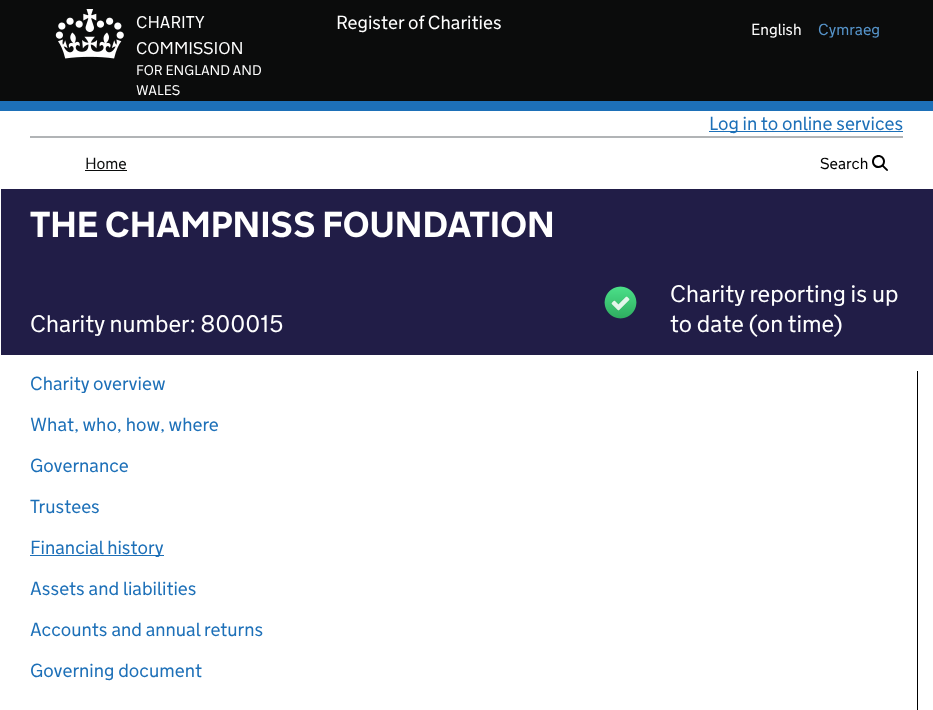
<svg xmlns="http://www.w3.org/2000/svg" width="933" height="710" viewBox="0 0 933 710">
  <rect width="100%" height="100%" fill="#fff"/>
  <path d="M0 0h933v101H0z" fill="#0b0c0c"/>
  <path d="M0 101h933v10H0z" fill="#1d70b8"/>
  <image x="55" y="9" width="69" height="50" href="img/1.png"/>
  <path d="M30 136h873v2H30z" fill="#b1b4b6"/>
  <path d="M709 131h194v1H709z" fill="#1d70b8"/>
  <path d="M85 170h42v1H85z" fill="#0b0c0c"/>
  <image x="872" y="155" width="16" height="16" href="img/2.png"/>
  <path d="M1 189h932v166H1z" fill="#211d47"/>
  <image x="604" y="286" width="33" height="33" href="img/3.png"/>
  <path d="M917 371h1v339H917z" fill="#000"/>
  <path d="M30 555h134v1H30z" fill="#1d70b8"/>
  <g font-family="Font" font-size="17" font-weight="300" fill="#fff">
    <text x="136" y="28">CHARITY</text>
    <text x="136" y="54">COMMISSION</text>
  </g>
  <g font-family="Font" font-size="14" font-weight="300" fill="#fff">
    <text x="136" y="75">FOR ENGLAND AND</text>
    <text x="136" y="95">WALES</text>
  </g>
  <text x="336" y="29" font-family="Font" font-size="19" font-weight="300" fill="#fff">Register of Charities</text>
  <text x="751" y="35" font-family="Font" font-size="16" font-weight="300" fill="#fff">English</text>
  <text x="818" y="35" font-family="Font" font-size="16" font-weight="300" fill="#5694ca">Cymraeg</text>
  <text x="709" y="130" font-family="Font" font-size="19" font-weight="300" fill="#1d70b8">Log in to online services</text>
  <text x="85" y="169" font-family="Font" font-size="16" font-weight="300" fill="#0b0c0c">Home</text>
  <text x="820" y="169" font-family="Font" font-size="16" font-weight="300" fill="#000">Search</text>
  <text x="30" y="237" font-family="Font" font-size="36" font-weight="bold" fill="#fff">THE CHAMPNISS FOUNDATION</text>
  <g font-family="Font" font-size="24" font-weight="300" fill="#fff">
    <text x="30" y="332">Charity number: 800015</text>
    <text x="670" y="302">Charity reporting is up</text>
    <text x="670" y="332">to date (on time)</text>
  </g>
  <g font-family="Font" font-size="19" font-weight="300" fill="#1d70b8">
    <text x="30" y="390">Charity overview</text>
    <text x="30" y="431">What, who, how, where</text>
    <text x="30" y="472">Governance</text>
    <text x="30" y="513">Trustees</text>
    <text x="30" y="554">Financial history</text>
    <text x="30" y="595">Assets and liabilities</text>
    <text x="30" y="636">Accounts and annual returns</text>
    <text x="30" y="677">Governing document</text>
  </g>
</svg>
